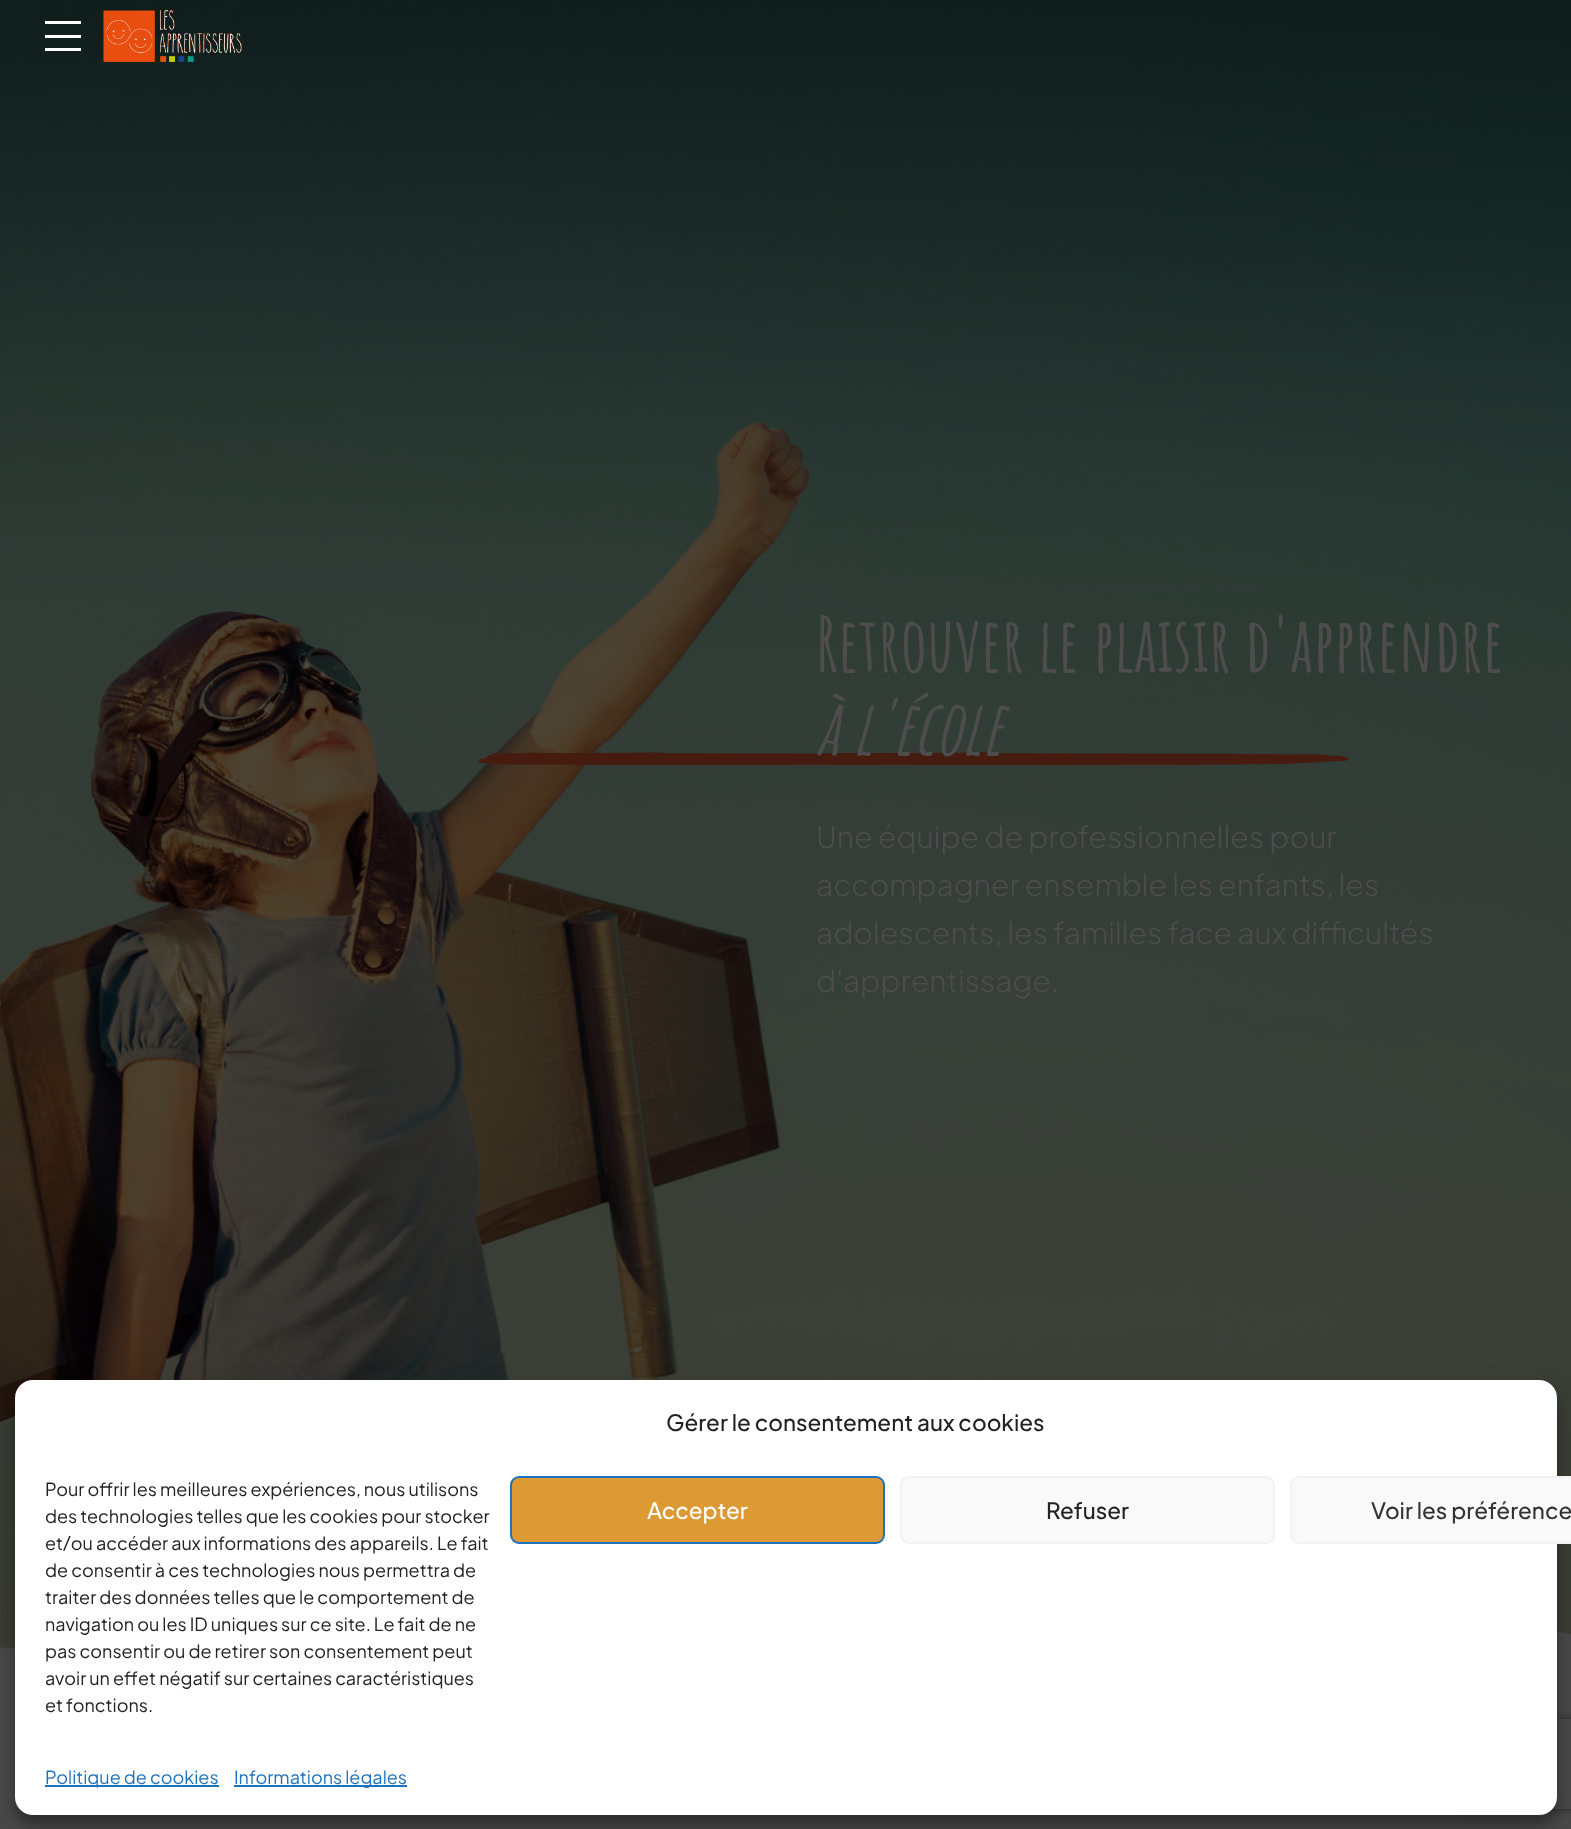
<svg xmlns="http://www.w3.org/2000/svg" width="1571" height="1829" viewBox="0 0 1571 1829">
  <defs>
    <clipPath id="clip1"><path d="M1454 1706H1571V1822H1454ZM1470 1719H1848C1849.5 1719 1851 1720.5 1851 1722V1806C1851 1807.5 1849.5 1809 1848 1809H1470C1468.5 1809 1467 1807.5 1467 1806V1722C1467 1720.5 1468.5 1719 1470 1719Z" clip-rule="evenodd"/></clipPath>
  </defs>
  <rect width="100%" height="100%" fill="#fff"/>
  <image x="0" y="0" width="1571" height="1649" href="img/2.png"/>
  <path d="M45 21h36v3H45z" fill="#fff"/>
  <path d="M45 35h36v3H45z" fill="#fff"/>
  <path d="M45 48h36v3H45z" fill="#fff"/>
  <image x="103" y="10" width="139" height="52" href="img/1.png"/>
  <image x="822" y="752" width="527" height="13" href="img/4.png"/>
  <image x="477" y="752" width="441" height="13" href="img/3.png"/>
  <image x="0" y="1630" width="1571" height="20" href="img/5.png"/>
  <path d="M0 1650h1571v179H0z" fill="#494949"/>
  <rect x="15" y="1389" width="1542" height="435" rx="18" fill="#0000003b" filter="blur(4.5px)"/>
  <rect x="15" y="1395" width="1542" height="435" rx="18" fill="#00000030" filter="blur(15px)"/>
  <g clip-path="url(#clip1)">
    <rect x="1467" y="1719" width="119" height="90" rx="3" fill="#262626" filter="blur(4px)"/>
  </g>
  <rect x="15" y="1380" width="1542" height="435" rx="18" fill="#fff"/>
  <rect x="511" y="1477" width="373" height="66" rx="8" fill="#d93" stroke="#1e73be" stroke-width="2"/>
  <rect x="901" y="1477" width="373" height="66" rx="8" fill="#f9f9f9" stroke="#f2f2f2" stroke-width="2"/>
  <rect x="1291" y="1477" width="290" height="66" rx="8" fill="#f9f9f9" stroke="#f2f2f2" stroke-width="2"/>
  <path d="M45 1785h174v2H45z" fill="#1e73be"/>
  <path d="M234 1785h173v2H234z" fill="#1e73be"/>
  <text x="816" y="672" font-family="Amatic SC" font-size="75" font-weight="bold" fill="#4d4d4d">Retrouver le plaisir d'apprendre</text>
  <text x="816" y="755" font-family="Amatic SC" font-size="75" font-weight="bold" font-style="italic" fill="#4d4d4d">à l'école</text>
  <g font-family="Plus Jakarta Sans" font-size="30" font-weight="300" fill="#4d4d4d">
    <text x="816" y="848">Une équipe de professionnelles pour</text>
    <text x="816" y="896">accompagner ensemble les enfants, les</text>
    <text x="816" y="944">adolescents, les familles face aux difficultés</text>
    <text x="816" y="992">d'apprentissage.</text>
  </g>
  <text x="666" y="1431" font-family="Plus Jakarta Sans" font-size="22.5" font-weight="500" fill="#222">Gérer le consentement aux cookies</text>
  <g font-family="Plus Jakarta Sans" font-size="18" fill="#222">
    <text x="45" y="1496">Pour offrir les meilleures expériences, nous utilisons</text>
    <text x="45" y="1523">des technologies telles que les cookies pour stocker</text>
    <text x="45" y="1550">et/ou accéder aux informations des appareils. Le fait</text>
    <text x="45" y="1577">de consentir à ces technologies nous permettra de</text>
    <text x="45" y="1604">traiter des données telles que le comportement de</text>
    <text x="45" y="1631">navigation ou les ID uniques sur ce site. Le fait de ne</text>
    <text x="45" y="1658">pas consentir ou de retirer son consentement peut</text>
    <text x="45" y="1685">avoir un effet négatif sur certaines caractéristiques</text>
    <text x="45" y="1712">et fonctions.</text>
  </g>
  <text x="647" y="1519" font-family="Plus Jakarta Sans" font-size="22.5" font-weight="500" fill="#fff">Accepter</text>
  <text x="1046" y="1519" font-family="Plus Jakarta Sans" font-size="22.5" font-weight="500" fill="#222">Refuser</text>
  <text x="1371" y="1519" font-family="Plus Jakarta Sans" font-size="22.5" font-weight="500" fill="#333">Voir les préférence</text>
  <g font-family="Plus Jakarta Sans" font-size="18" fill="#1e73be">
    <text x="45" y="1784">Politique de cookies</text>
    <text x="234" y="1784">Informations légales</text>
  </g>
</svg>
